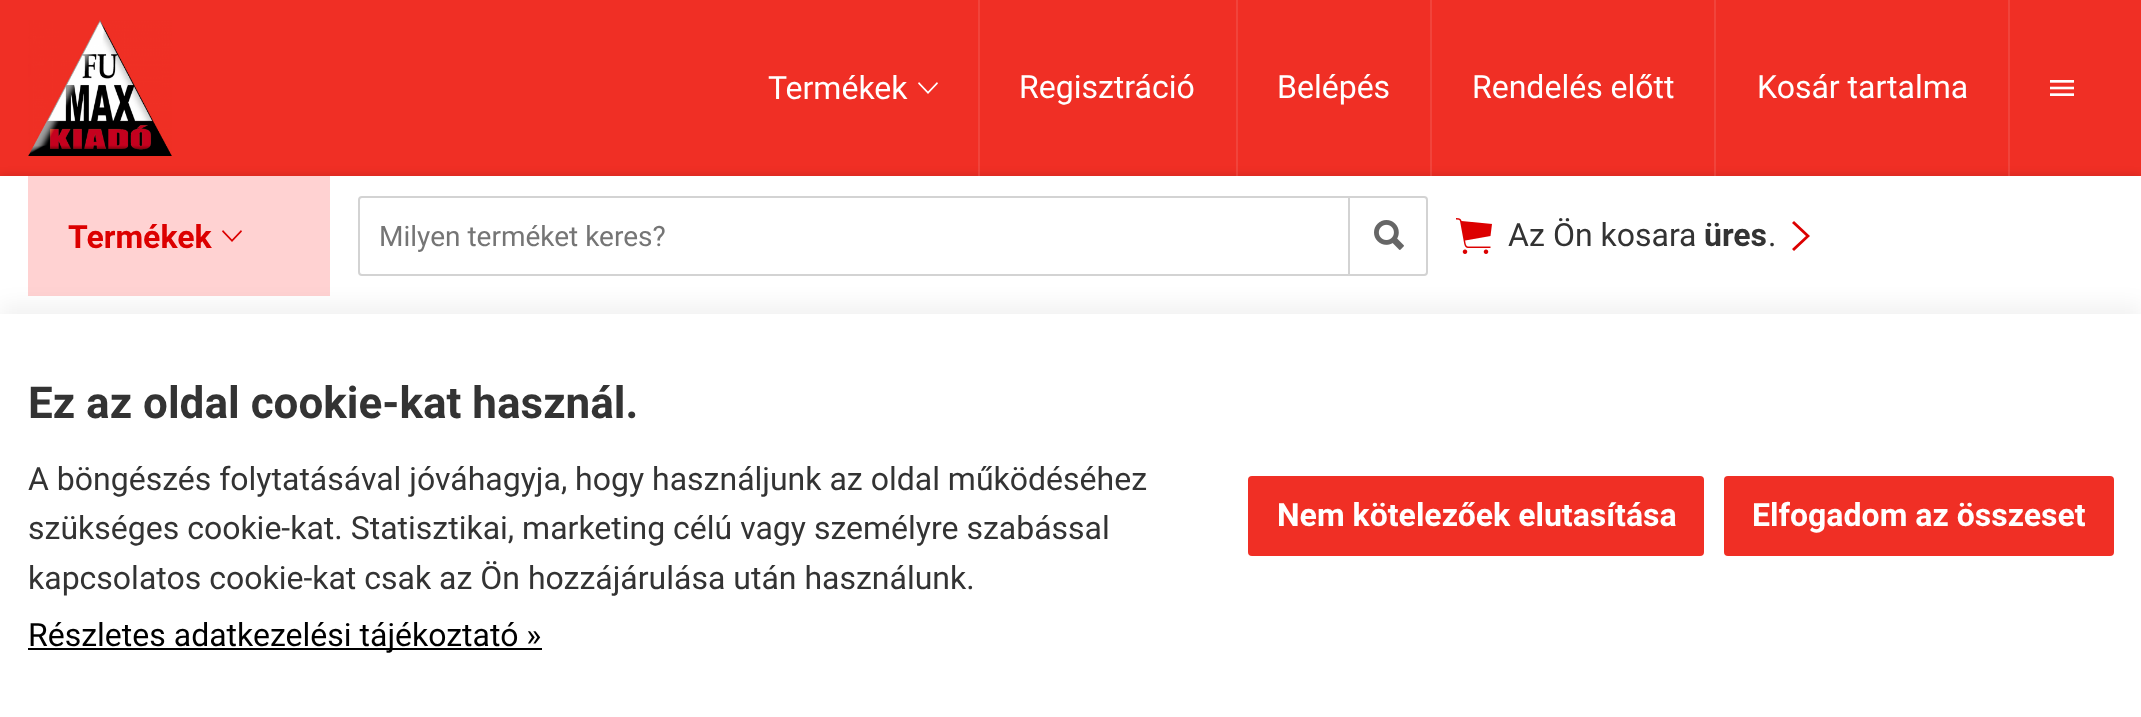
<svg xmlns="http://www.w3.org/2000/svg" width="2141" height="717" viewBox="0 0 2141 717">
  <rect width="100%" height="100%" fill="#f02f25"/>
  <image x="28" y="20" width="144" height="136" href="img/1.png"/>
  <path d="M0 176h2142v120H0z" fill="#00000026" filter="blur(5px)"/>
  <path d="M978 0h2v176H978z" fill="#ffffff1a"/>
  <path d="M937 82L938 83.5L928 94L918 83.5L919 82L928 91.5Z" fill="#fff"/>
  <path d="M1236 0h2v176H1236z" fill="#ffffff1a"/>
  <path d="M1430 0h2v176H1430z" fill="#ffffff1a"/>
  <path d="M1714 0h2v176H1714z" fill="#ffffff1a"/>
  <path d="M2008 0h2v176H2008z" fill="#ffffff1a"/>
  <image x="2050" y="80" width="24" height="16" href="img/2.png"/>
  <path d="M0 176h2141v138H0z" fill="#fff"/>
  <path d="M28 176h302v120H28z" fill="#ffd2d2"/>
  <path d="M241 230L242 231.5L232 242L222 231.5L223 230L232 239.5Z" fill="#dc0000"/>
  <rect x="359" y="197" width="1068" height="78" rx="3" fill="none" stroke="#d3d3d3" stroke-width="2"/>
  <path d="M1348 196h2v80H1348z" fill="#d3d3d3"/>
  <image x="1374" y="220" width="30" height="30" href="img/3.png"/>
  <image x="1456" y="218" width="36" height="36" href="img/4.png"/>
  <path d="M1792 223L1794 221L1810 236L1794 251L1792 249L1806 236Z" fill="#dc0000"/>
  <path d="M0 304h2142v404H0z" fill="#0000000d" filter="blur(10px)"/>
  <path d="M0 314h2141v403H0z" fill="#fff"/>
  <path d="M28 648h514v2H28z" fill="#000"/>
  <rect x="1248" y="476" width="456" height="80" rx="4" fill="#f02f25"/>
  <rect x="1724" y="476" width="390" height="80" rx="4" fill="#f02f25"/>
  <g font-family="Roboto" font-size="32" fill="#fff">
    <text x="768" y="99">Termékek</text>
    <text x="1019" y="98">Regisztráció</text>
    <text x="1277" y="98">Belépés</text>
    <text x="1472" y="98">Rendelés előtt</text>
    <text x="1757" y="98">Kosár tartalma</text>
  </g>
  <text x="68" y="248" font-family="Roboto" font-size="32" font-weight="bold" fill="#dc0000">Termékek</text>
  <text x="379" y="246" font-family="Roboto" font-size="28" fill="#757575">Milyen terméket keres?</text>
  <text x="1508" y="246" font-family="Roboto" font-size="32" fill="#333">Az Ön kosara</text>
  <text x="1704" y="246" font-family="Roboto" font-size="32" font-weight="bold" fill="#333">üres</text>
  <text x="1768" y="246" font-family="Roboto" font-size="32" fill="#333">.</text>
  <text x="28" y="418" font-family="Roboto" font-size="44" font-weight="bold" fill="#333">Ez az oldal cookie-kat használ.</text>
  <g font-family="Roboto" font-size="32" fill="#333">
    <text x="28" y="490">A böngészés folytatásával jóváhagyja, hogy használjunk az oldal működéséhez</text>
    <text x="28" y="539">szükséges cookie-kat. Statisztikai, marketing célú vagy személyre szabással</text>
    <text x="28" y="589">kapcsolatos cookie-kat csak az Ön hozzájárulása után használunk.</text>
  </g>
  <text x="28" y="646" font-family="Roboto" font-size="32" fill="#000">Részletes adatkezelési tájékoztató »</text>
  <g font-family="Roboto" font-size="32" font-weight="bold" fill="#fff">
    <text x="1277" y="526">Nem kötelezőek elutasítása</text>
    <text x="1752" y="526">Elfogadom az összeset</text>
  </g>
</svg>
